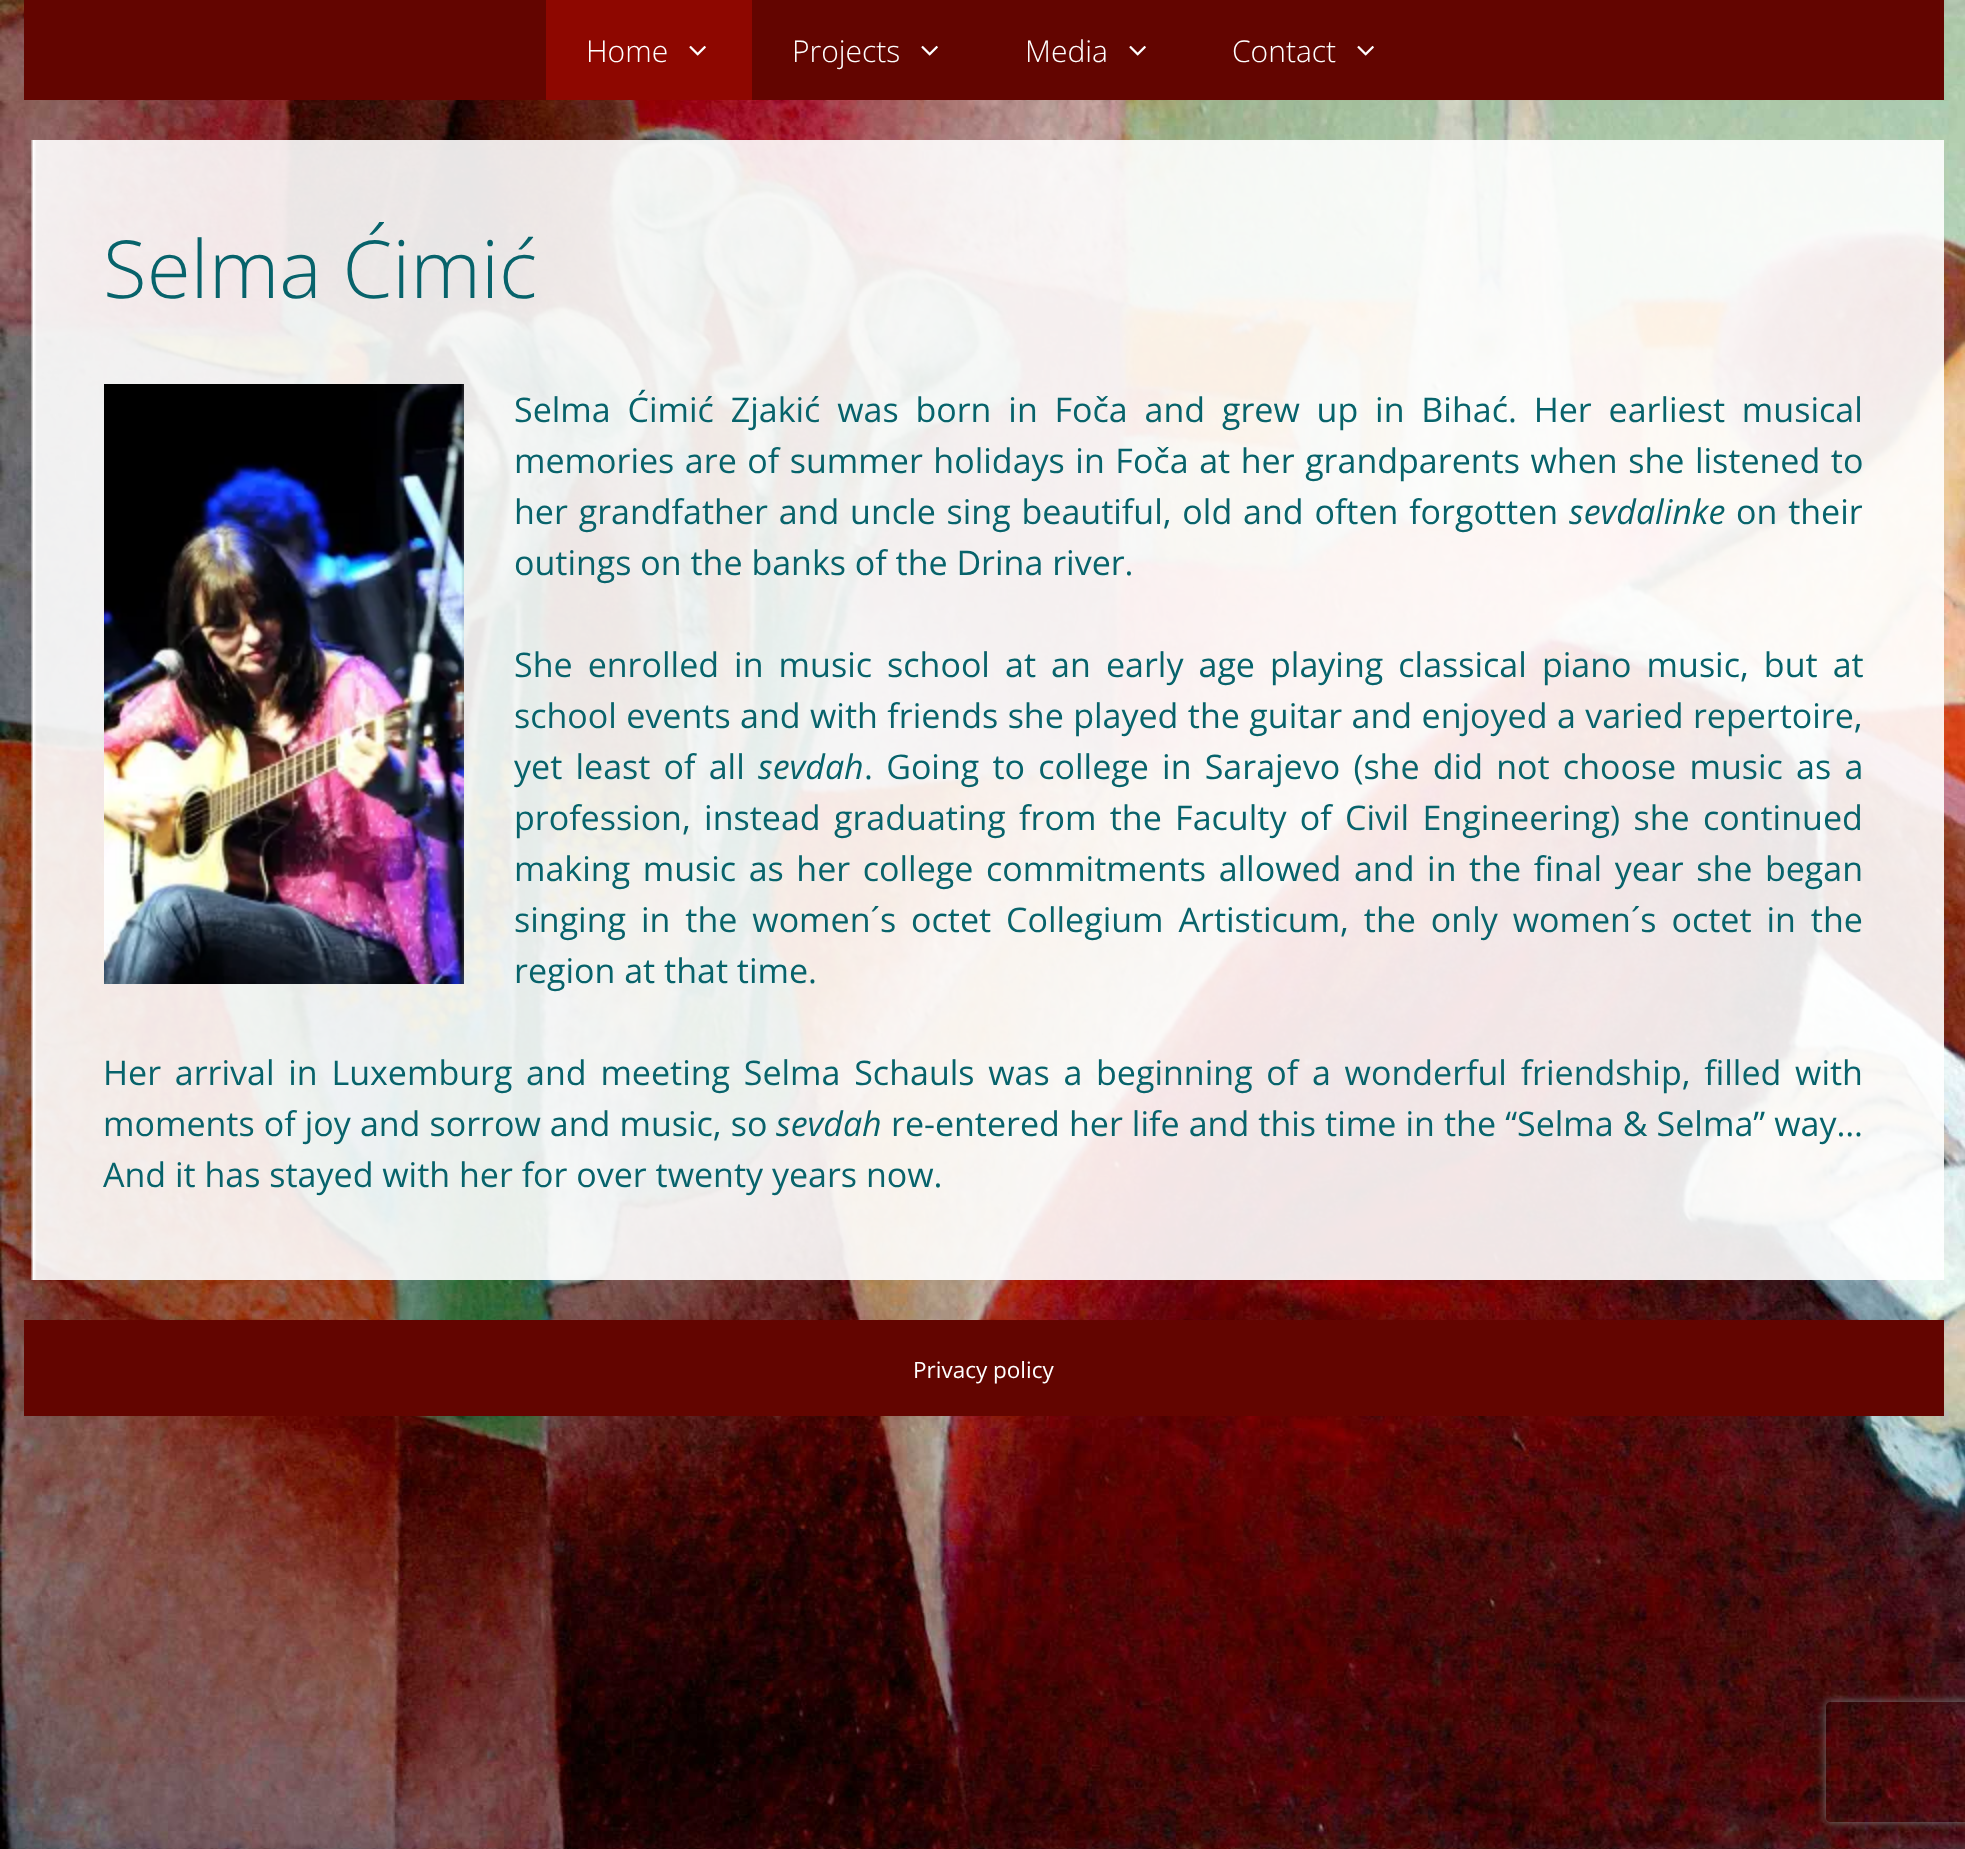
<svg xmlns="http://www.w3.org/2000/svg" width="1965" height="1849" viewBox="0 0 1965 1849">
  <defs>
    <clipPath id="clip1"><path d="M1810 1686H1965V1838H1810ZM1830 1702H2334C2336 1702 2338 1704 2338 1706V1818C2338 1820 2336 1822 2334 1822H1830C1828 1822 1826 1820 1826 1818V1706C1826 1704 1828 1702 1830 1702Z" clip-rule="evenodd"/></clipPath>
  </defs>
  <rect width="100%" height="100%" fill="#fff"/>
  <image x="0" y="0" width="1965" height="1849" href="img/1.png"/>
  <path d="M24 0h1920v100H24z" fill="#630500"/>
  <path d="M546 0h206v100H546z" fill="#8e0700"/>
  <image x="689" y="45" width="17" height="11" href="img/2.png"/>
  <image x="921" y="45" width="17" height="11" href="img/3.png"/>
  <image x="1129" y="45" width="17" height="11" href="img/3.png"/>
  <image x="1357" y="45" width="17" height="11" href="img/3.png"/>
  <image x="24" y="140" width="1920" height="1140" href="img/4.png"/>
  <image x="104" y="384" width="360" height="600" href="img/5.png"/>
  <path d="M24 1320h1920v96H24z" fill="#630500"/>
  <g clip-path="url(#clip1)">
    <rect x="1826" y="1702" width="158" height="120" rx="4" fill="#808080" filter="blur(5px)"/>
  </g>
  <g font-family="Open Sans" font-size="30" font-weight="300" fill="#fff">
    <text x="586" y="62">Home</text>
    <text x="792" y="62">Projects</text>
    <text x="1025" y="62">Media</text>
    <text x="1232" y="62">Contact</text>
  </g>
  <text x="103" y="298" font-family="Open Sans" font-size="80" font-weight="300" fill="#07636b">Selma Ćimić</text>
  <g font-family="Open Sans" font-size="34" fill="#07636b">
    <text x="514" y="422" word-spacing="8">Selma Ćimić Zjakić was born in Foča and grew up in Bihać. Her earliest musical</text>
    <text x="514" y="473" word-spacing="1.75">memories are of summer holidays in Foča at her grandparents when she listened to</text>
    <text x="514" y="524" word-spacing="2">her grandfather and uncle sing beautiful, old and often forgotten</text>
  </g>
  <text x="1569" y="524" font-family="Open Sans" font-size="34" font-style="italic" fill="#07636b">sevdalinke</text>
  <g font-family="Open Sans" font-size="34" fill="#07636b">
    <text x="1736" y="524" word-spacing="2">on their</text>
    <text x="514" y="575">outings on the banks of the Drina river.</text>
    <text x="514" y="677" word-spacing="6.25">She enrolled in music school at an early age playing classical piano music, but at</text>
    <text x="514" y="728" word-spacing="0.6">school events and with friends she played the guitar and enjoyed a varied repertoire,</text>
    <text x="514" y="779" word-spacing="4.4">yet least of all</text>
  </g>
  <text x="758" y="779" font-family="Open Sans" font-size="34" font-style="italic" fill="#07636b">sevdah</text>
  <g font-family="Open Sans" font-size="34" fill="#07636b">
    <text x="864" y="779" word-spacing="4.4">. Going to college in Sarajevo (she did not choose music as a</text>
    <text x="514" y="830" word-spacing="4.5">profession, instead graduating from the Faculty of Civil Engineering) she continued</text>
    <text x="514" y="881" word-spacing="3.75">making music as her college commitments allowed and in the final year she began</text>
    <text x="514" y="932" word-spacing="6.1">singing in the women´s octet Collegium Artisticum, the only women´s octet in the</text>
    <text x="514" y="983">region at that time.</text>
    <text x="103" y="1085" word-spacing="4.9">Her arrival in Luxemburg and meeting Selma Schauls was a beginning of a wonderful friendship, filled with</text>
    <text x="103" y="1136" word-spacing="0.25">moments of joy and sorrow and music, so</text>
  </g>
  <text x="776" y="1136" font-family="Open Sans" font-size="34" font-style="italic" fill="#07636b">sevdah</text>
  <g font-family="Open Sans" font-size="34" fill="#07636b">
    <text x="891" y="1136" word-spacing="0.25">re-entered her life and this time in the “Selma &amp; Selma” way…</text>
    <text x="103" y="1187">And it has stayed with her for over twenty years now.</text>
  </g>
  <text x="913" y="1378" font-family="Open Sans" font-size="22.5" fill="#fff">Privacy policy</text>
</svg>
